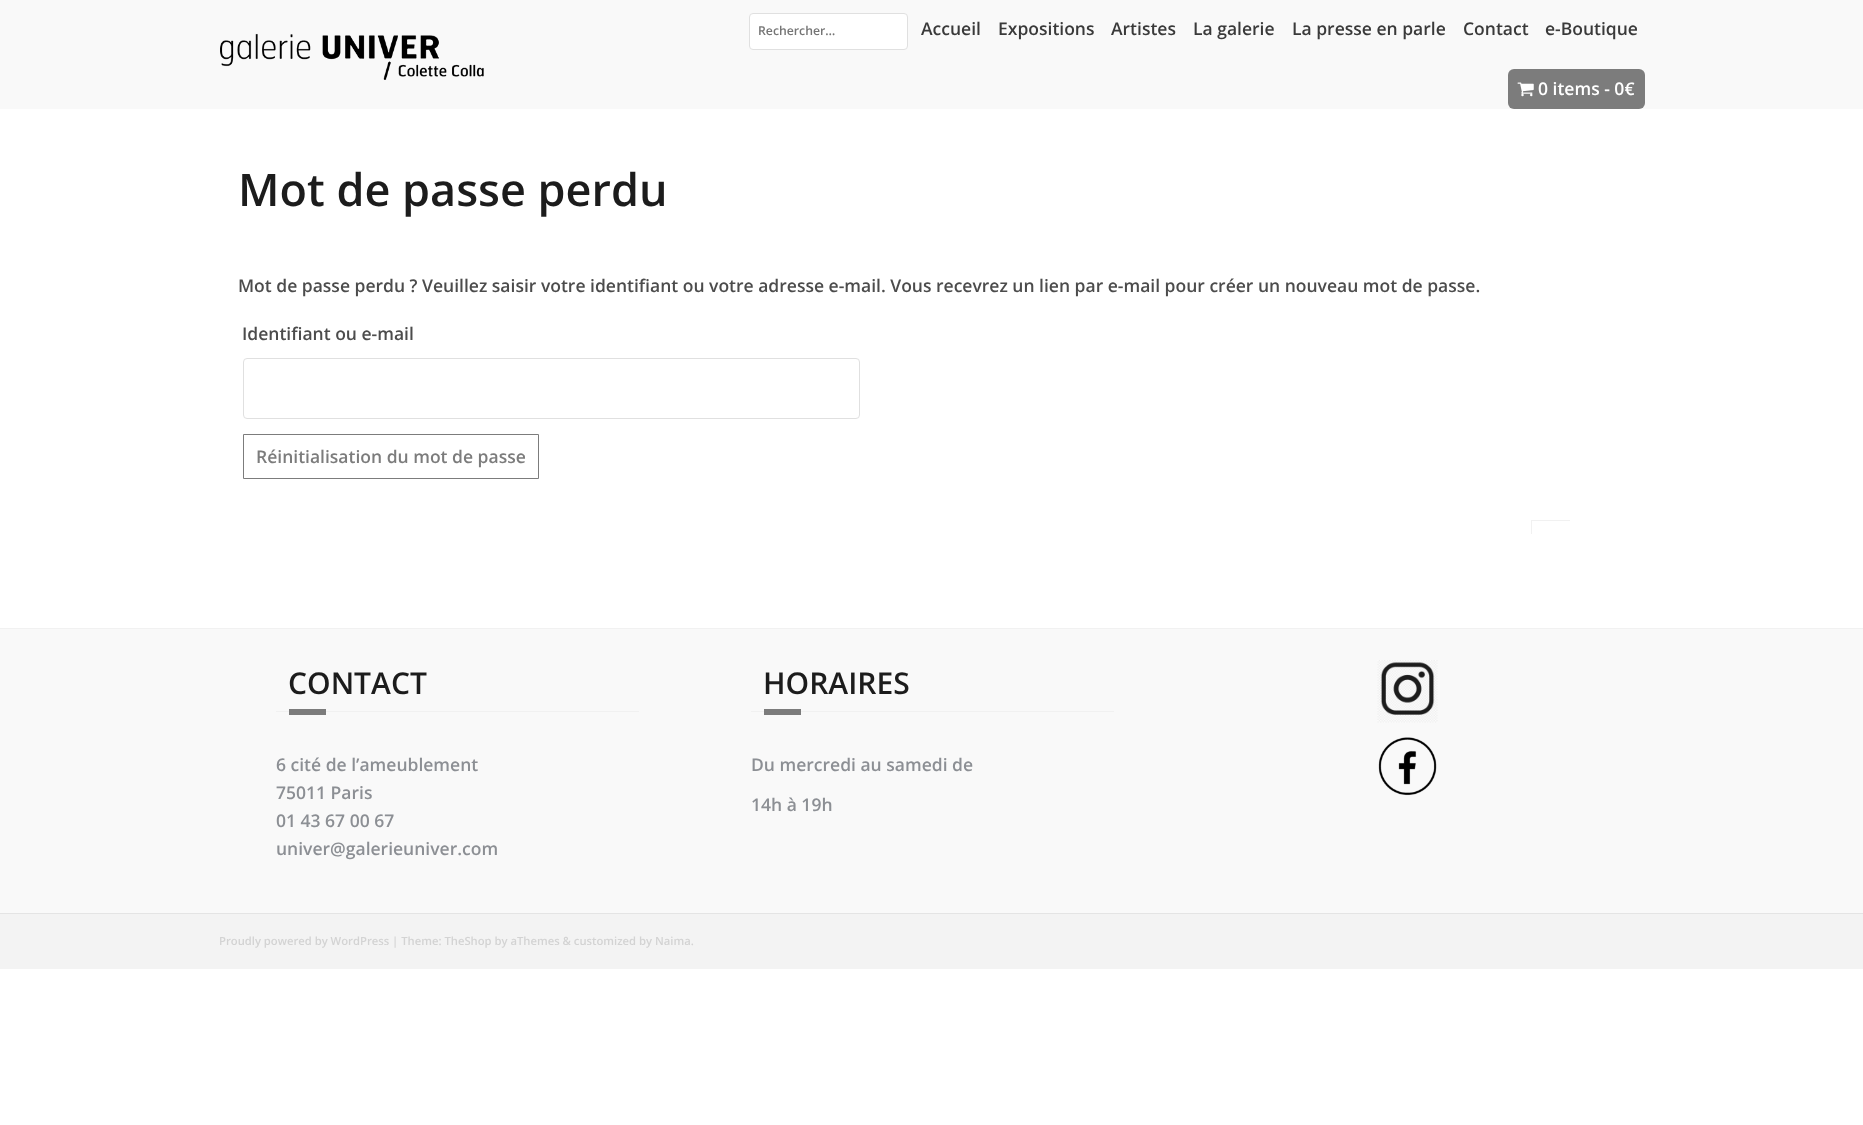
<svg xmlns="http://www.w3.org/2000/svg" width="1863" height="1125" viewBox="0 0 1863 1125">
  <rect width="100%" height="100%" fill="#fff"/>
  <path d="M0 0h1863v109H0z" fill="#f9f9f9"/>
  <image x="220" y="33" width="264" height="47" href="img/1.png"/>
  <rect x="749.5" y="13.5" width="158" height="36" rx="3.5" fill="#fff" stroke="#e0e0e0"/>
  <rect x="1508" y="69" width="137" height="40" rx="6" fill="#7c7c7c"/>
  <image x="1517" y="82" width="17" height="15" href="img/2.png"/>
  <rect x="243.5" y="358.5" width="616" height="60" rx="3.5" fill="none" stroke="#e0e0e0"/>
  <path d="M243.5 434.5h295v44H243.5z" fill="none" stroke="#7c7c7c"/>
  <path d="M1531 520h39v1H1531z" fill="#f1f1f1"/>
  <path d="M1531 520h1v14H1531z" fill="#f1f1f1"/>
  <path d="M0 629h1863v284H0z" fill="#f9f9f9"/>
  <path d="M0 628h1863v1H0z" fill="#f1f1f1"/>
  <path d="M276 711h363v1H276z" fill="#f1f1f1"/>
  <path d="M289 709h37v6H289z" fill="#7c7c7c"/>
  <path d="M751 711h363v1H751z" fill="#f1f1f1"/>
  <path d="M764 709h37v6H764z" fill="#7c7c7c"/>
  <image x="1377" y="660" width="61" height="63" href="img/3.png"/>
  <image x="1378" y="737" width="59" height="59" href="img/4.png"/>
  <path d="M0 914h1863v55H0z" fill="#f3f3f3"/>
  <path d="M0 913h1863v1H0z" fill="#e4e4e4"/>
  <text x="758" y="35" font-family="Open Sans" font-size="12.25" font-weight="600" fill="#757575">Rechercher…</text>
  <g font-family="Open Sans" font-size="17.5" font-weight="600" fill="#3a3a3a">
    <text x="921" y="35">Accueil</text>
    <text x="998" y="35">Expositions</text>
    <text x="1111" y="35">Artistes</text>
    <text x="1193" y="35">La galerie</text>
    <text x="1292" y="35">La presse en parle</text>
    <text x="1463" y="35">Contact</text>
    <text x="1545" y="35">e-Boutique</text>
  </g>
  <text x="1538" y="95" font-family="Open Sans" font-size="17.5" font-weight="600" fill="#fff">0 items - 0€</text>
  <text x="238" y="206" font-family="Open Sans" font-size="45" font-weight="600" fill="#1c1c1c">Mot de passe perdu</text>
  <g font-family="Open Sans" font-size="17.5" font-weight="600" fill="#4c4c4c">
    <text x="238" y="292">Mot de passe perdu ? Veuillez saisir votre identifiant ou votre adresse e-mail. Vous recevrez un lien par e-mail pour créer un nouveau mot de passe.</text>
    <text x="242" y="340">Identifiant ou e-mail</text>
  </g>
  <text x="256" y="463" font-family="Open Sans" font-size="17.5" font-weight="600" fill="#7c7c7c">Réinitialisation du mot de passe</text>
  <text x="288" y="694" font-family="Open Sans" font-size="30" font-weight="600" fill="#1c1c1c">CONTACT</text>
  <g font-family="Open Sans" font-size="17.5" font-weight="600" fill="#8c8f94">
    <text x="276" y="771">6 cité de l’ameublement</text>
    <text x="276" y="799">75011 Paris</text>
    <text x="276" y="827">01 43 67 00 67</text>
    <text x="276" y="855">univer@galerieuniver.com</text>
  </g>
  <text x="763" y="694" font-family="Open Sans" font-size="30" font-weight="600" fill="#1c1c1c">HORAIRES</text>
  <g font-family="Open Sans" font-size="17.5" font-weight="600" fill="#8c8f94">
    <text x="751" y="771">Du mercredi au samedi de</text>
    <text x="751" y="811">14h à 19h</text>
  </g>
  <text x="219" y="945" font-family="Open Sans" font-size="11.25" font-weight="600" fill="#d3d3d3">Proudly powered by WordPress | Theme: TheShop by aThemes &amp; customized by Naima.</text>
</svg>
